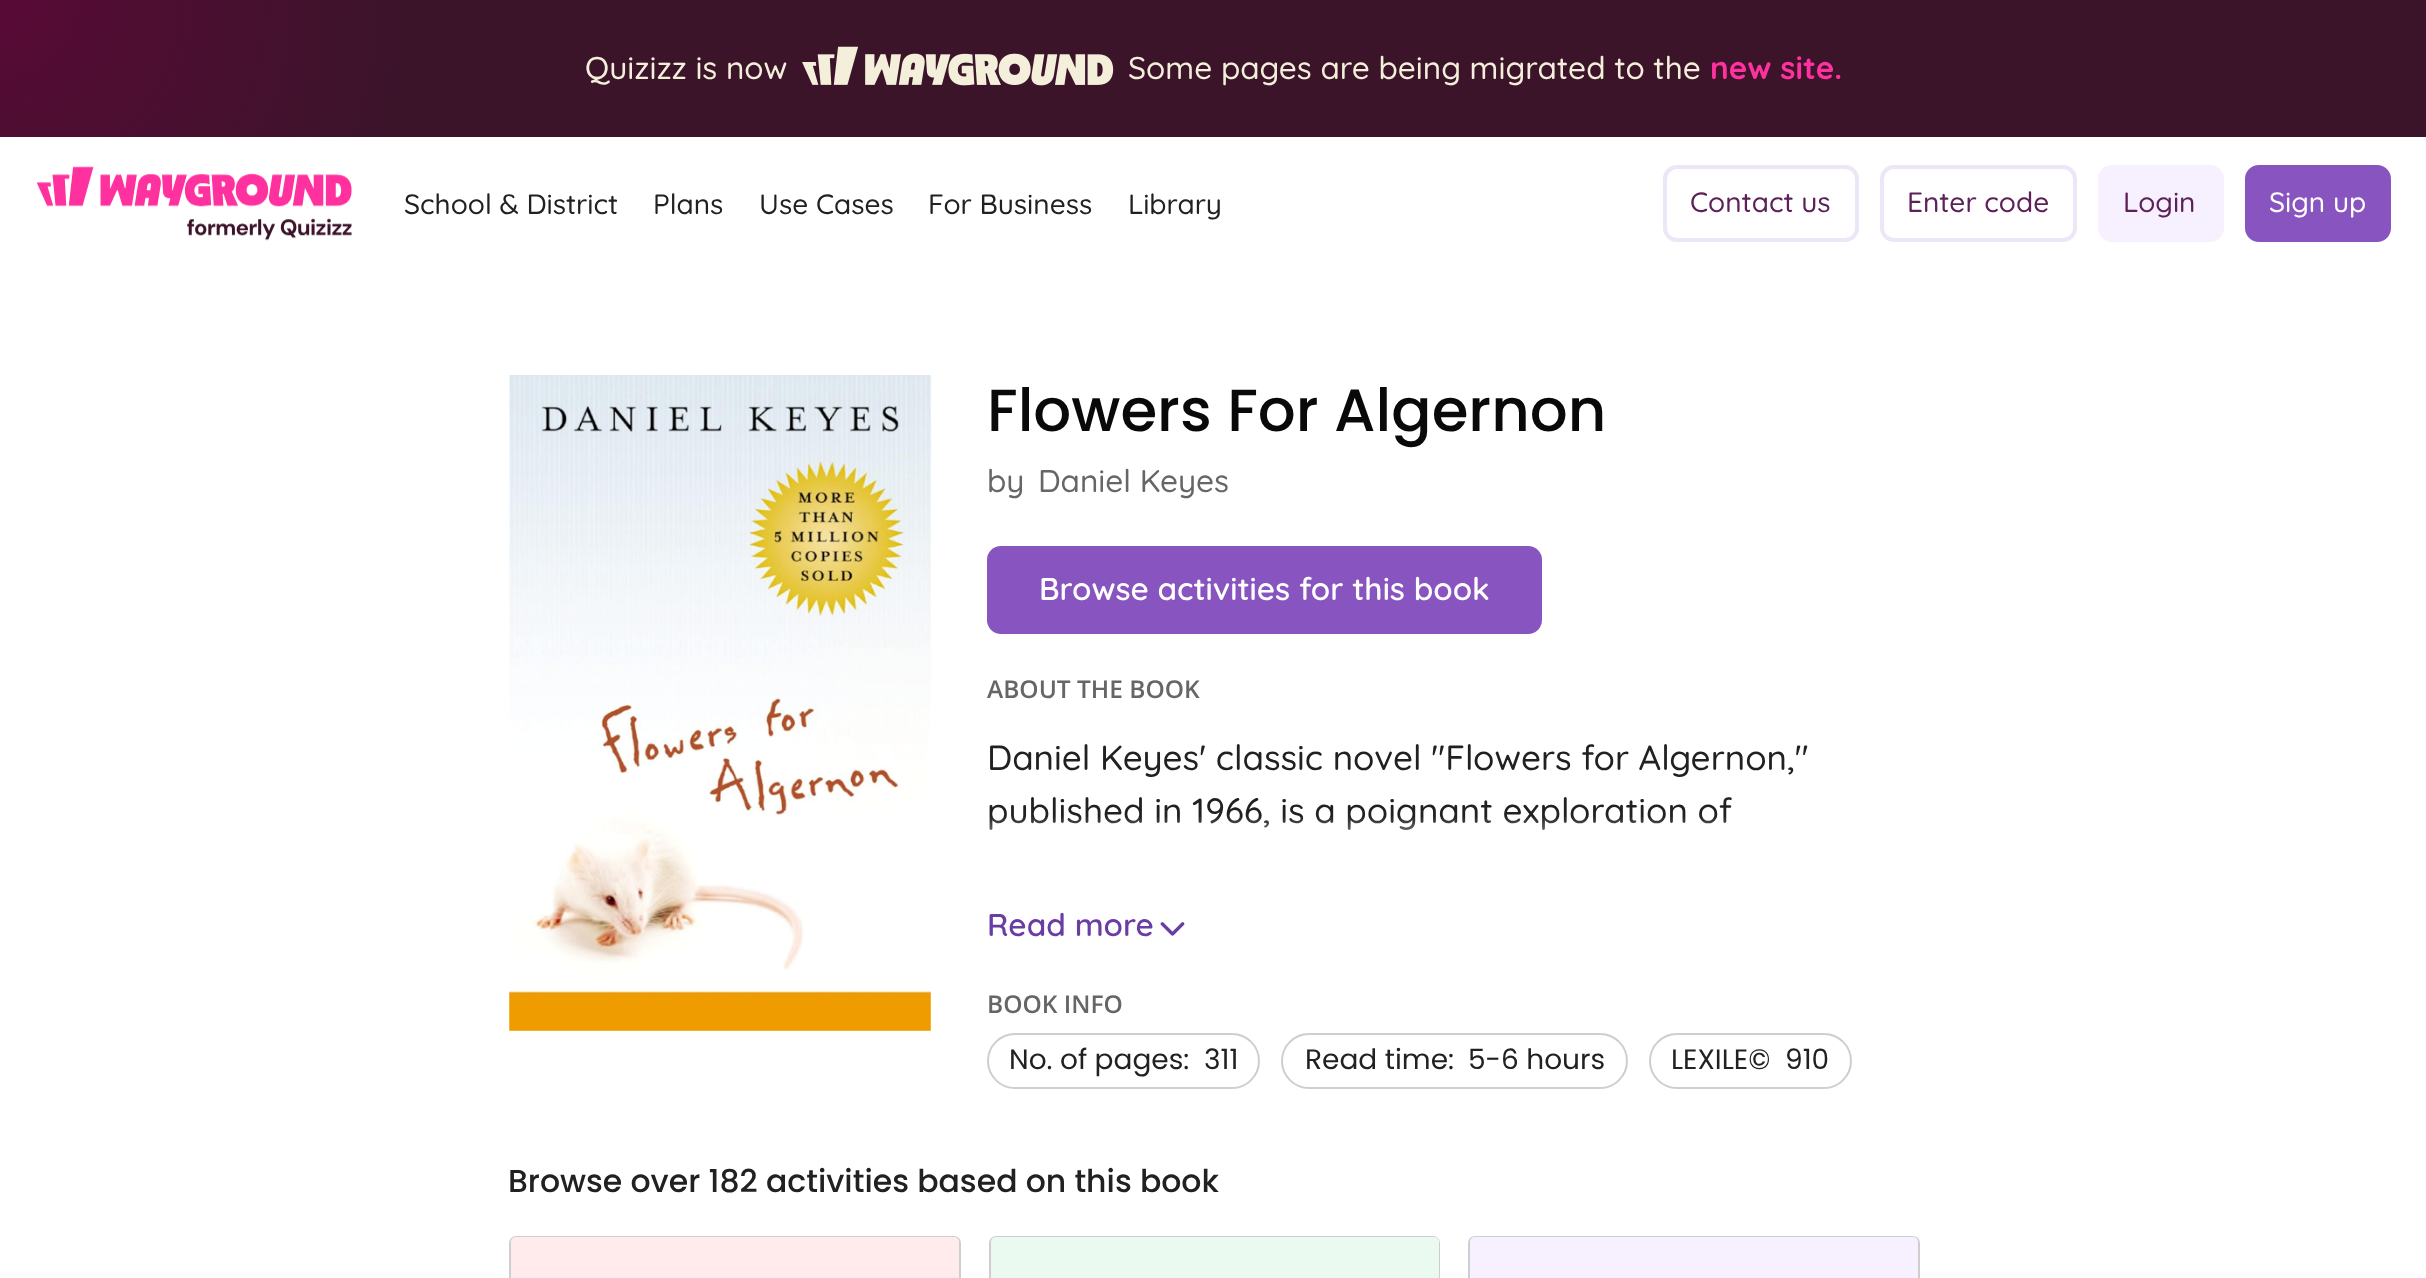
<svg xmlns="http://www.w3.org/2000/svg" width="2426" height="1278" viewBox="0 0 2426 1278">
  <defs>
    <radialGradient id="g1" gradientUnits="userSpaceOnUse" cx="0" cy="0" r="2431"><stop offset="0" stop-color="#580a36"/><stop offset="0.17" stop-color="#3b142a"/></radialGradient>
    <linearGradient id="g2" gradientUnits="userSpaceOnUse" x1="1453" y1="805" x2="1453" y2="875"><stop offset="0.15" stop-color="#fff" stop-opacity="0"/><stop offset="0.79" stop-color="#fff" stop-opacity="0.9"/></linearGradient>
  </defs>
  <rect width="100%" height="100%" fill="#fff"/>
  <path d="M0 0h2426v137H0z" fill="url(#g1)"/>
  <image x="802" y="46" width="312" height="40" href="img/1.png"/>
  <image x="37" y="166" width="315" height="75" href="img/2.png"/>
  <rect x="1665" y="167" width="192" height="73" rx="12" fill="none" stroke="#ede6f6" stroke-width="4"/>
  <rect x="1882" y="167" width="193" height="73" rx="12" fill="none" stroke="#ede6f6" stroke-width="4"/>
  <rect x="2100" y="167" width="122" height="73" rx="12" fill="#f6f0ff" stroke="#f6f0ff" stroke-width="4"/>
  <rect x="2247" y="167" width="142" height="73" rx="12" fill="#8854c0" stroke="#8854c0" stroke-width="4"/>
  <image x="509" y="375" width="422" height="656" href="img/3.png"/>
  <rect x="987" y="546" width="555" height="88" rx="14" fill="#8854c0"/>
  <image x="1160" y="922" width="25" height="14" href="img/4.png"/>
  <rect x="988" y="1034" width="271" height="54" rx="27" fill="none" stroke="#cecece" stroke-width="2"/>
  <rect x="1282" y="1034" width="345" height="54" rx="27" fill="none" stroke="#cecece" stroke-width="2"/>
  <rect x="1650" y="1034" width="201" height="54" rx="27" fill="none" stroke="#cecece" stroke-width="2"/>
  <rect x="510" y="1237" width="450" height="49" rx="6" fill="none" stroke="#cecece" stroke-width="2"/>
  <path d="M516 1237H954C957 1237 959 1239 959 1242V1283H511V1242C511 1239 513 1237 516 1237Z" fill="#ffebeb"/>
  <rect x="990" y="1237" width="449" height="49" rx="6" fill="none" stroke="#cecece" stroke-width="2"/>
  <path d="M996 1237H1434C1437 1237 1439 1239 1439 1242V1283H991V1242C991 1239 993 1237 996 1237Z" fill="#eafaf1"/>
  <rect x="1469" y="1237" width="450" height="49" rx="6" fill="none" stroke="#cecece" stroke-width="2"/>
  <path d="M1475 1237H1913C1916 1237 1918 1239 1918 1242V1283H1470V1242C1470 1239 1472 1237 1475 1237Z" fill="#f6f0ff"/>
  <g font-family="Quicksand" font-size="31.5" font-weight="500" fill="#f3efda">
    <text x="585" y="79">Quizizz is now</text>
    <text x="1128" y="79">Some pages are being migrated to the</text>
  </g>
  <text x="1710" y="79" font-family="Quicksand" font-size="31.5" font-weight="bold" fill="#ff319f">new site.</text>
  <g font-family="Quicksand" font-size="28" font-weight="500" fill="#212121">
    <text x="404" y="214">School &amp; District</text>
    <text x="653" y="214">Plans</text>
    <text x="759" y="214">Use Cases</text>
    <text x="928" y="214">For Business</text>
    <text x="1128" y="214">Library</text>
  </g>
  <g font-family="Quicksand" font-size="28" font-weight="500" fill="#5d2057">
    <text x="1690" y="212">Contact us</text>
    <text x="1907" y="212">Enter code</text>
    <text x="2123" y="212">Login</text>
  </g>
  <text x="2269" y="212" font-family="Quicksand" font-size="28" font-weight="500" fill="#fff">Sign up</text>
  <text x="987" y="431" font-family="Poppins" font-size="59.5" font-weight="500" fill="#090909">Flowers For Algernon</text>
  <g font-family="Quicksand" font-size="31.5" font-weight="500" fill="#666">
    <text x="987" y="492">by</text>
    <text x="1038" y="492">Daniel Keyes</text>
  </g>
  <text x="1039" y="600" font-family="Quicksand" font-size="31.5" font-weight="600" fill="#fff">Browse activities for this book</text>
  <text x="987" y="698" font-family="Open Sans" font-size="24.5" font-weight="600" fill="#666">ABOUT THE BOOK</text>
  <g font-family="Quicksand" font-size="35" font-weight="500" fill="#212121">
    <text x="987" y="770">Daniel Keyes' classic novel "Flowers for Algernon,"</text>
    <text x="987" y="823">published in 1966, is a poignant exploration of</text>
  </g>
  <path d="M989 817h737v13H989z" fill="url(#g2)"/>
  <text x="987" y="936" font-family="Quicksand" font-size="31.5" font-weight="600" fill="#6a3da5">Read more</text>
  <text x="987" y="1013" font-family="Open Sans" font-size="24.5" font-weight="600" fill="#666">BOOK INFO</text>
  <g font-family="Poppins" font-size="28" fill="#212121">
    <text x="1009" y="1069">No. of pages:</text>
    <text x="1204" y="1069">311</text>
    <text x="1305" y="1069">Read time:</text>
    <text x="1468" y="1069">5-6 hours</text>
    <text x="1671" y="1069">LEXILE©</text>
    <text x="1785" y="1069">910</text>
  </g>
  <text x="508" y="1192" font-family="Poppins" font-size="31.5" font-weight="500" fill="#212121">Browse over 182 activities based on this book</text>
</svg>
